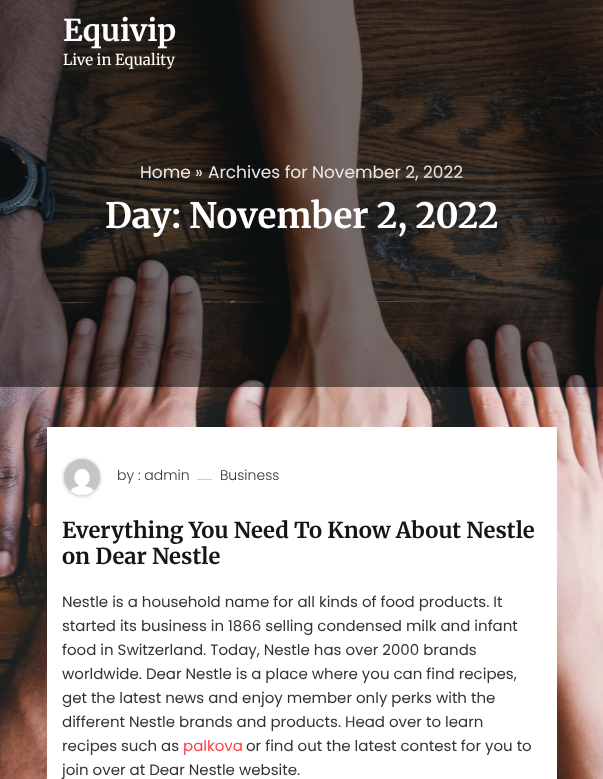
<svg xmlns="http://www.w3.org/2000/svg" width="603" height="779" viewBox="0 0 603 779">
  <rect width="100%" height="100%" fill="#fff"/>
  <image x="0" y="0" width="603" height="779" href="img/1.png"/>
  <path d="M0 0h603v387H0z" fill="#00000080"/>
  <path d="M47 427h510v352H47z" fill="#fff"/>
  <circle cx="82" cy="477" r="19" fill="none" stroke="#fafafa" stroke-width="2"/>
  <rect x="64" y="460" width="36" height="36" rx="18" fill="#00000033" filter="blur(2px)"/>
  <image x="64" y="459" width="36" height="36" href="img/2.png"/>
  <path d="M197 479h15v1H197z" fill="#cecbd2"/>
  <text x="63" y="41" font-family="Merriweather" font-size="30" font-weight="bold" fill="#fff">Equivip</text>
  <text x="63" y="65" font-family="Merriweather" font-size="15" fill="#fff">Live in Equality</text>
  <g font-family="Poppins" font-size="17" fill="#eae9e8">
    <text x="140" y="178">Home</text>
    <text x="195" y="178">»</text>
    <text x="208" y="178">Archives for November 2, 2022</text>
  </g>
  <text x="105" y="228" font-family="Merriweather" font-size="35" font-weight="bold" fill="#fff">Day: November 2, 2022</text>
  <g font-family="Poppins" font-size="14" font-weight="300" fill="#333">
    <text x="117" y="480">by : admin</text>
    <text x="220" y="480">Business</text>
  </g>
  <g font-family="Merriweather" font-size="22" font-weight="bold" fill="#151515">
    <text x="62" y="538">Everything You Need To Know About Nestle</text>
    <text x="62" y="564">on Dear Nestle</text>
  </g>
  <g font-family="Poppins" font-size="15" fill="#333">
    <text x="62" y="607">Nestle is a household name for all kinds of food products. It</text>
    <text x="62" y="631">started its business in 1866 selling condensed milk and infant</text>
    <text x="62" y="655">food in Switzerland. Today, Nestle has over 2000 brands</text>
    <text x="62" y="679">worldwide. Dear Nestle is a place where you can find recipes,</text>
    <text x="62" y="703">get the latest news and enjoy member only perks with the</text>
    <text x="62" y="727">different Nestle brands and products. Head over to learn</text>
    <text x="62" y="751">recipes such as</text>
  </g>
  <text x="183" y="751" font-family="Poppins" font-size="15" fill="#fd4145">palkova</text>
  <g font-family="Poppins" font-size="15" fill="#333">
    <text x="246" y="751">or find out the latest contest for you to</text>
    <text x="62" y="775">join over at Dear Nestle website.</text>
  </g>
</svg>
